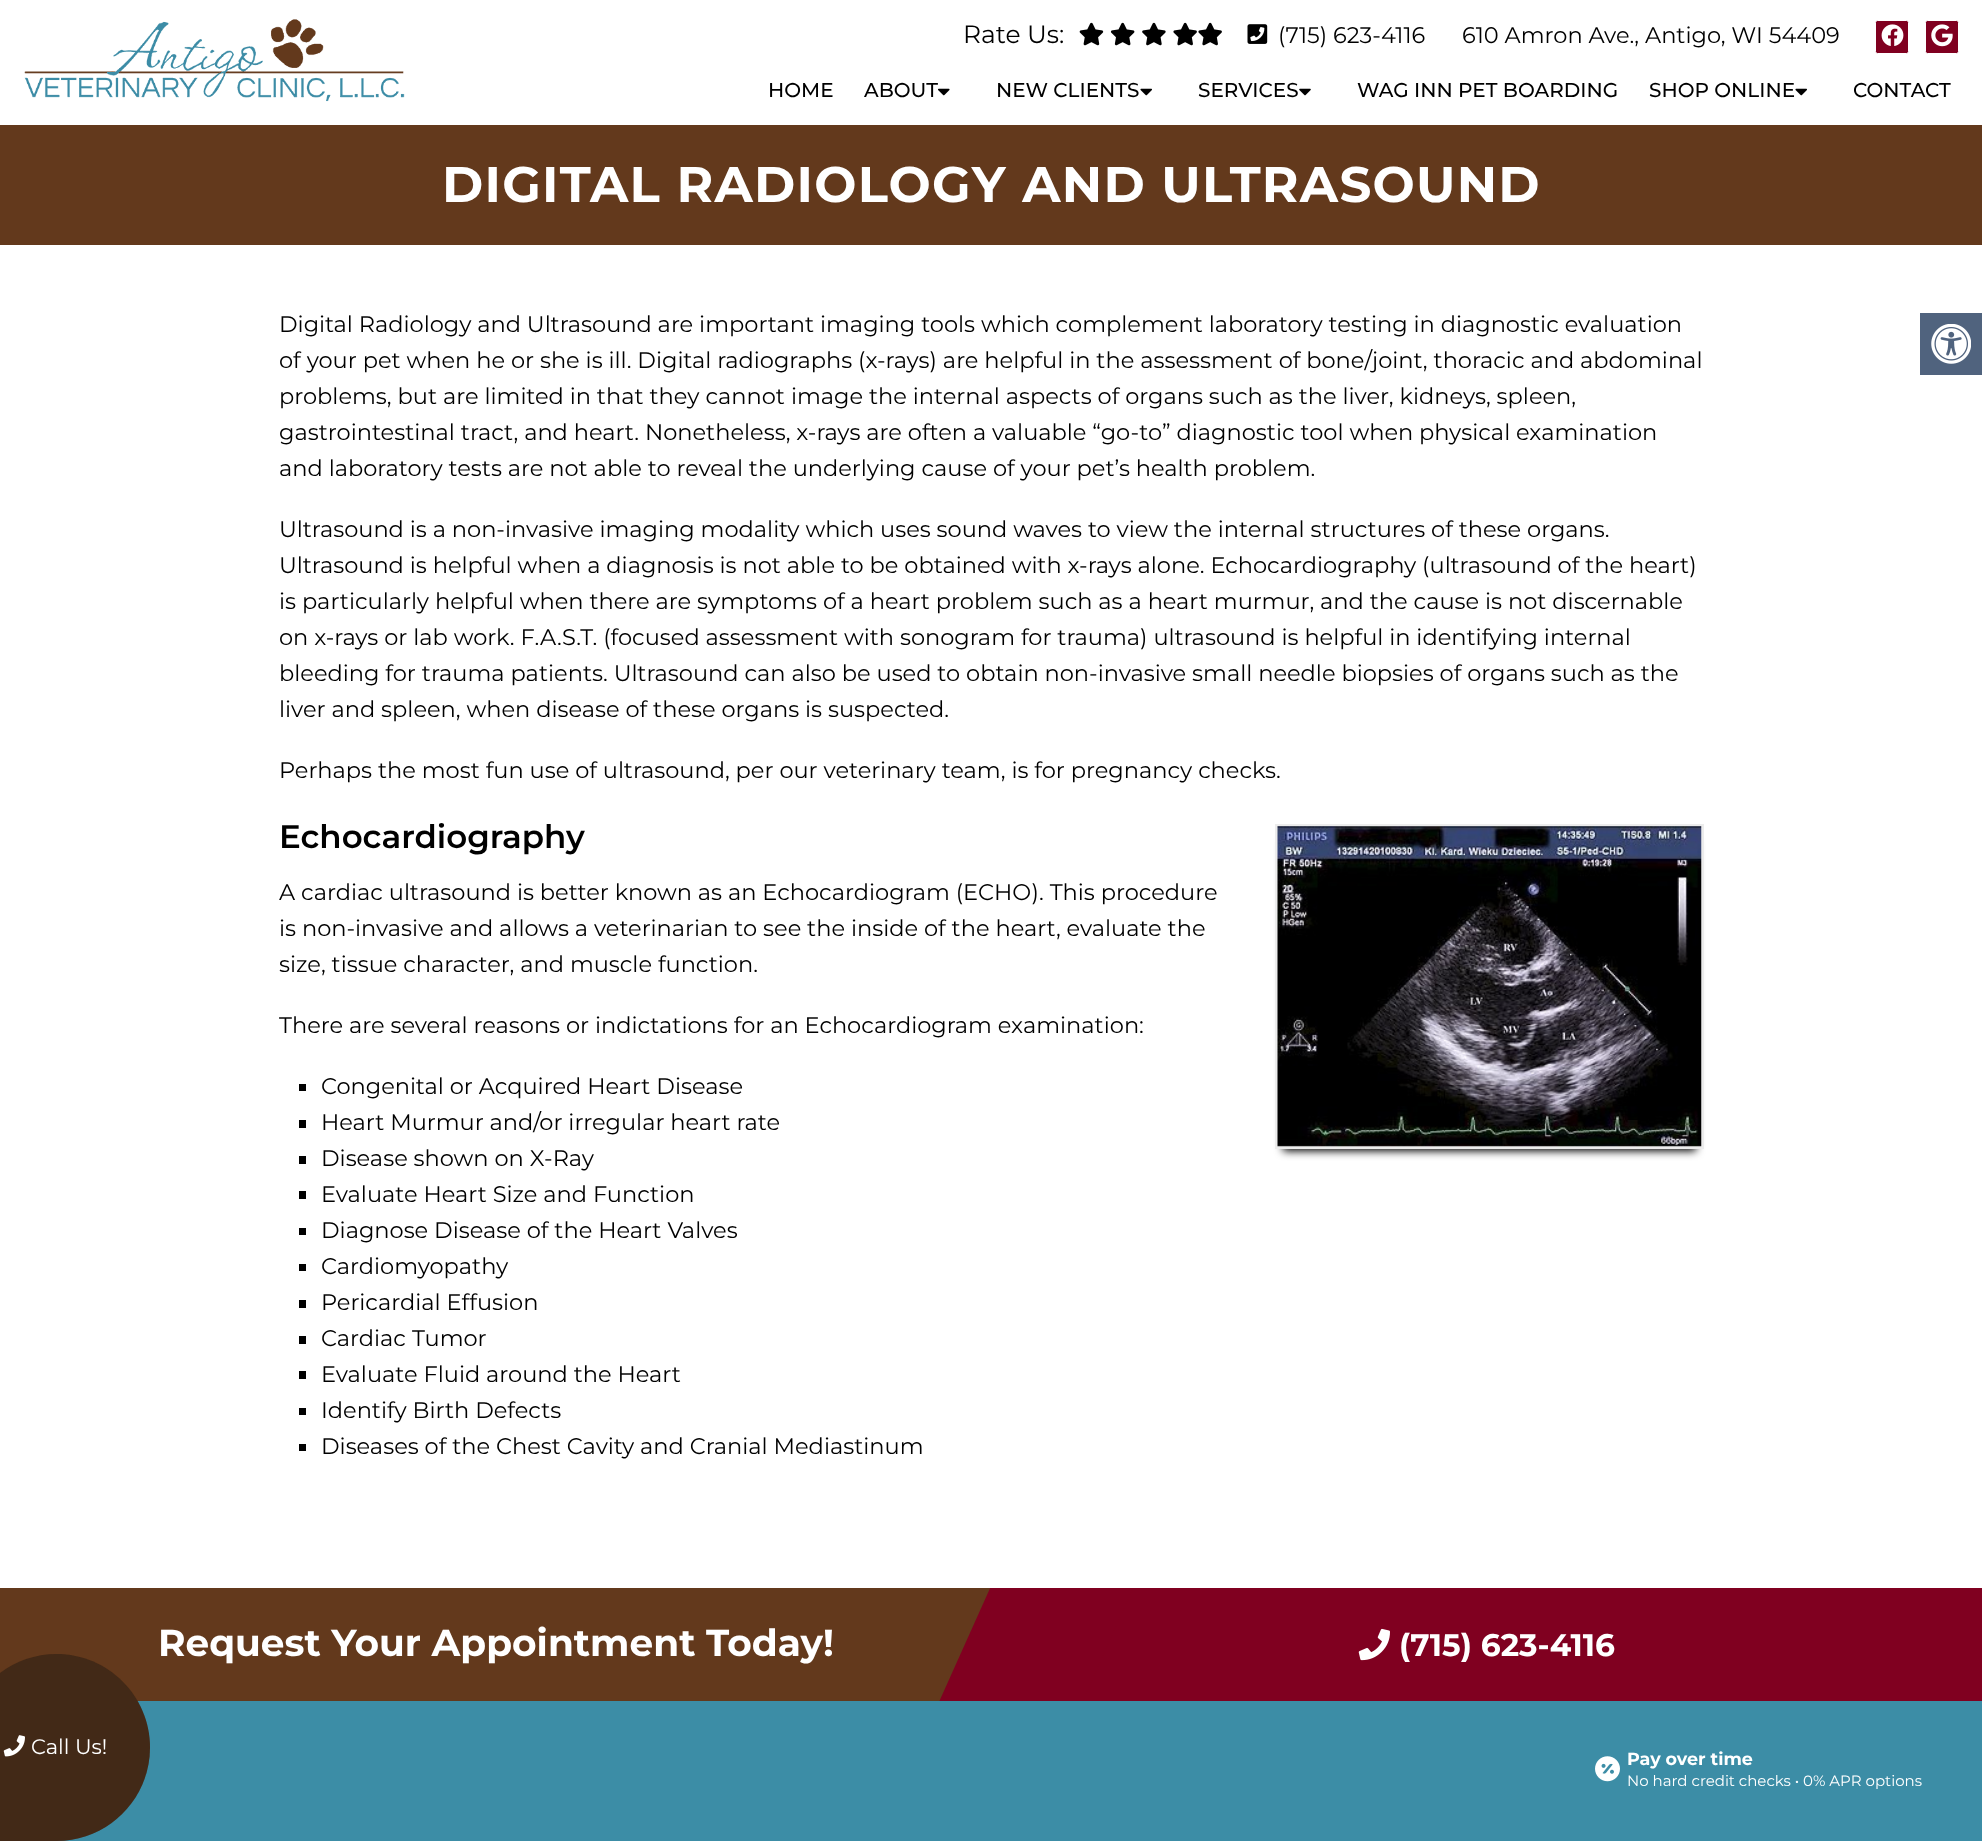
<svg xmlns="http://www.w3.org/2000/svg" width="1982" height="1841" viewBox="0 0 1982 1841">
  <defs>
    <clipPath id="clip1"><path d="M0 1588h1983v113H0z"/></clipPath>
  </defs>
  <rect width="100%" height="100%" fill="#fff"/>
  <image x="24" y="19" width="381" height="83" href="img/1.png"/>
  <image x="1079" y="22" width="25" height="24" href="img/2.png"/>
  <image x="1110" y="22" width="25" height="24" href="img/3.png"/>
  <image x="1142" y="22" width="24" height="24" href="img/4.png"/>
  <image x="1173" y="22" width="24" height="24" href="img/5.png"/>
  <image x="1198" y="22" width="24" height="24" href="img/5.png"/>
  <image x="1247" y="24" width="21" height="20" href="img/6.png"/>
  <rect x="1875.5" y="20.5" width="33" height="33" rx="2" fill="#800020" stroke="#fff"/>
  <image x="1881" y="24" width="23" height="22" href="img/7.png"/>
  <rect x="1925.5" y="20.5" width="33" height="33" rx="2" fill="#800020" stroke="#fff"/>
  <image x="1931" y="24" width="22" height="23" href="img/8.png"/>
  <image x="938" y="88" width="12" height="8" href="img/9.png"/>
  <image x="1140" y="88" width="12" height="8" href="img/10.png"/>
  <image x="1299" y="88" width="12" height="8" href="img/11.png"/>
  <image x="1795" y="88" width="12" height="8" href="img/10.png"/>
  <path d="M0 125h1982v120H0z" fill="#63391c"/>
  <path d="M1283 841h413v310H1283z" fill="#000" filter="blur(4px)"/>
  <path d="M1276.5 825.5h426v322H1276.5z" fill="none" stroke="#ececec" stroke-width="3"/>
  <image x="1277" y="826" width="425" height="321" href="img/12.png"/>
  <path d="M299 1084h7v7H299z" fill="#000"/>
  <path d="M299 1120h7v8H299z" fill="#000"/>
  <path d="M299 1156h7v8H299z" fill="#000"/>
  <path d="M299 1191h7v8H299z" fill="#000"/>
  <path d="M299 1228h7v7H299z" fill="#000"/>
  <path d="M299 1264h7v7H299z" fill="#000"/>
  <path d="M299 1300h7v8H299z" fill="#000"/>
  <path d="M299 1336h7v8H299z" fill="#000"/>
  <path d="M299 1371h7v8H299z" fill="#000"/>
  <path d="M299 1408h7v7H299z" fill="#000"/>
  <path d="M299 1444h7v7H299z" fill="#000"/>
  <path d="M0 1588h991v113H0z" fill="#63391c"/>
  <path d="M1082 1588h900v113H1082z" fill="#800020"/>
  <g clip-path="url(#clip1)">
    <path d="M1022 1517L1141 1570L1037 1804L917 1751Z" fill="#800020"/>
  </g>
  <image x="1358" y="1628" width="32" height="33" href="img/13.png"/>
  <path d="M57 1701h1925v140H57z" fill="#3c8da6"/>
  <path d="M56.5 1654C108 1654 150 1696 150 1747.5C150 1799 108 1841 56.5 1841H-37V1747.5C-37 1696 5 1654 56.5 1654Z" fill="#63391c"/>
  <path d="M56.5 1654C108 1654 150 1696 150 1747.5C150 1799 108 1841 56.5 1841H-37V1747.5C-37 1696 5 1654 56.5 1654Z" fill="#11111166"/>
  <image x="3" y="1735" width="22" height="22" href="img/14.png"/>
  <path d="M1920 313h62v62H1920z" fill="#50637e"/>
  <image x="1931" y="324" width="40" height="40" href="img/15.png"/>
  <image x="1595" y="1756" width="25" height="26" href="img/16.png"/>
  <text x="963" y="43" font-family="Montserrat" font-size="25" fill="#000">Rate Us:</text>
  <g font-family="Montserrat" font-size="22.5" fill="#000">
    <text x="1278" y="43">(715) 623-4116</text>
    <text x="1462" y="43">610 Amron Ave., Antigo, WI 54409</text>
  </g>
  <g font-family="Montserrat" font-size="20" font-weight="500" fill="#000">
    <text x="768" y="97">HOME</text>
    <text x="864" y="97">ABOUT</text>
    <text x="996" y="97">NEW CLIENTS</text>
    <text x="1198" y="97">SERVICES</text>
    <text x="1357" y="97">WAG INN PET BOARDING</text>
    <text x="1649" y="97">SHOP ONLINE</text>
    <text x="1853" y="97">CONTACT</text>
  </g>
  <text x="442" y="202" font-family="Montserrat" font-size="50" font-weight="bold" letter-spacing="1.25" fill="#fff">DIGITAL RADIOLOGY AND ULTRASOUND</text>
  <g font-family="Montserrat" font-size="22.5" fill="#000">
    <text x="279" y="332">Digital Radiology and Ultrasound are important imaging tools which complement laboratory testing in diagnostic evaluation</text>
    <text x="279" y="368">of your pet when he or she is ill. Digital radiographs (x-rays) are helpful in the assessment of bone/joint, thoracic and abdominal</text>
    <text x="279" y="404">problems, but are limited in that they cannot image the internal aspects of organs such as the liver, kidneys, spleen,</text>
    <text x="279" y="440">gastrointestinal tract, and heart. Nonetheless, x-rays are often a valuable “go-to” diagnostic tool when physical examination</text>
    <text x="279" y="476">and laboratory tests are not able to reveal the underlying cause of your pet’s health problem.</text>
    <text x="279" y="537">Ultrasound is a non-invasive imaging modality which uses sound waves to view the internal structures of these organs.</text>
    <text x="279" y="573">Ultrasound is helpful when a diagnosis is not able to be obtained with x-rays alone. Echocardiography (ultrasound of the heart)</text>
    <text x="279" y="609">is particularly helpful when there are symptoms of a heart problem such as a heart murmur, and the cause is not discernable</text>
    <text x="279" y="645">on x-rays or lab work. F.A.S.T. (focused assessment with sonogram for trauma) ultrasound is helpful in identifying internal</text>
    <text x="279" y="681">bleeding for trauma patients. Ultrasound can also be used to obtain non-invasive small needle biopsies of organs such as the</text>
    <text x="279" y="717">liver and spleen, when disease of these organs is suspected.</text>
    <text x="279" y="778">Perhaps the most fun use of ultrasound, per our veterinary team, is for pregnancy checks.</text>
  </g>
  <text x="279" y="848" font-family="Montserrat" font-size="32.5" font-weight="600" fill="#000">Echocardiography</text>
  <g font-family="Montserrat" font-size="22.5" fill="#000">
    <text x="279" y="900">A cardiac ultrasound is better known as an Echocardiogram (ECHO). This procedure</text>
    <text x="279" y="936">is non-invasive and allows a veterinarian to see the inside of the heart, evaluate the</text>
    <text x="279" y="972">size, tissue character, and muscle function.</text>
    <text x="279" y="1033">There are several reasons or indictations for an Echocardiogram examination:</text>
    <text x="321" y="1094">Congenital or Acquired Heart Disease</text>
    <text x="321" y="1130">Heart Murmur and/or irregular heart rate</text>
    <text x="321" y="1166">Disease shown on X-Ray</text>
    <text x="321" y="1202">Evaluate Heart Size and Function</text>
    <text x="321" y="1238">Diagnose Disease of the Heart Valves</text>
    <text x="321" y="1274">Cardiomyopathy</text>
    <text x="321" y="1310">Pericardial Effusion</text>
    <text x="321" y="1346">Cardiac Tumor</text>
    <text x="321" y="1382">Evaluate Fluid around the Heart</text>
    <text x="321" y="1418">Identify Birth Defects</text>
    <text x="321" y="1454">Diseases of the Chest Cavity and Cranial Mediastinum</text>
  </g>
  <text x="158" y="1656" font-family="Montserrat" font-size="37.5" font-weight="bold" fill="#fff">Request Your Appointment Today!</text>
  <text x="1399" y="1656" font-family="Montserrat" font-size="31.25" font-weight="bold" fill="#fff">(715) 623-4116</text>
  <text x="31" y="1754" font-family="Montserrat" font-size="21" fill="#fff">Call Us!</text>
  <text x="1627" y="1765" font-family="Montserrat" font-size="17.5" font-weight="bold" fill="#fff">Pay over time</text>
  <text x="1627" y="1786" font-family="Montserrat" font-size="15" fill="#fff">No hard credit checks • 0% APR options</text>
</svg>
